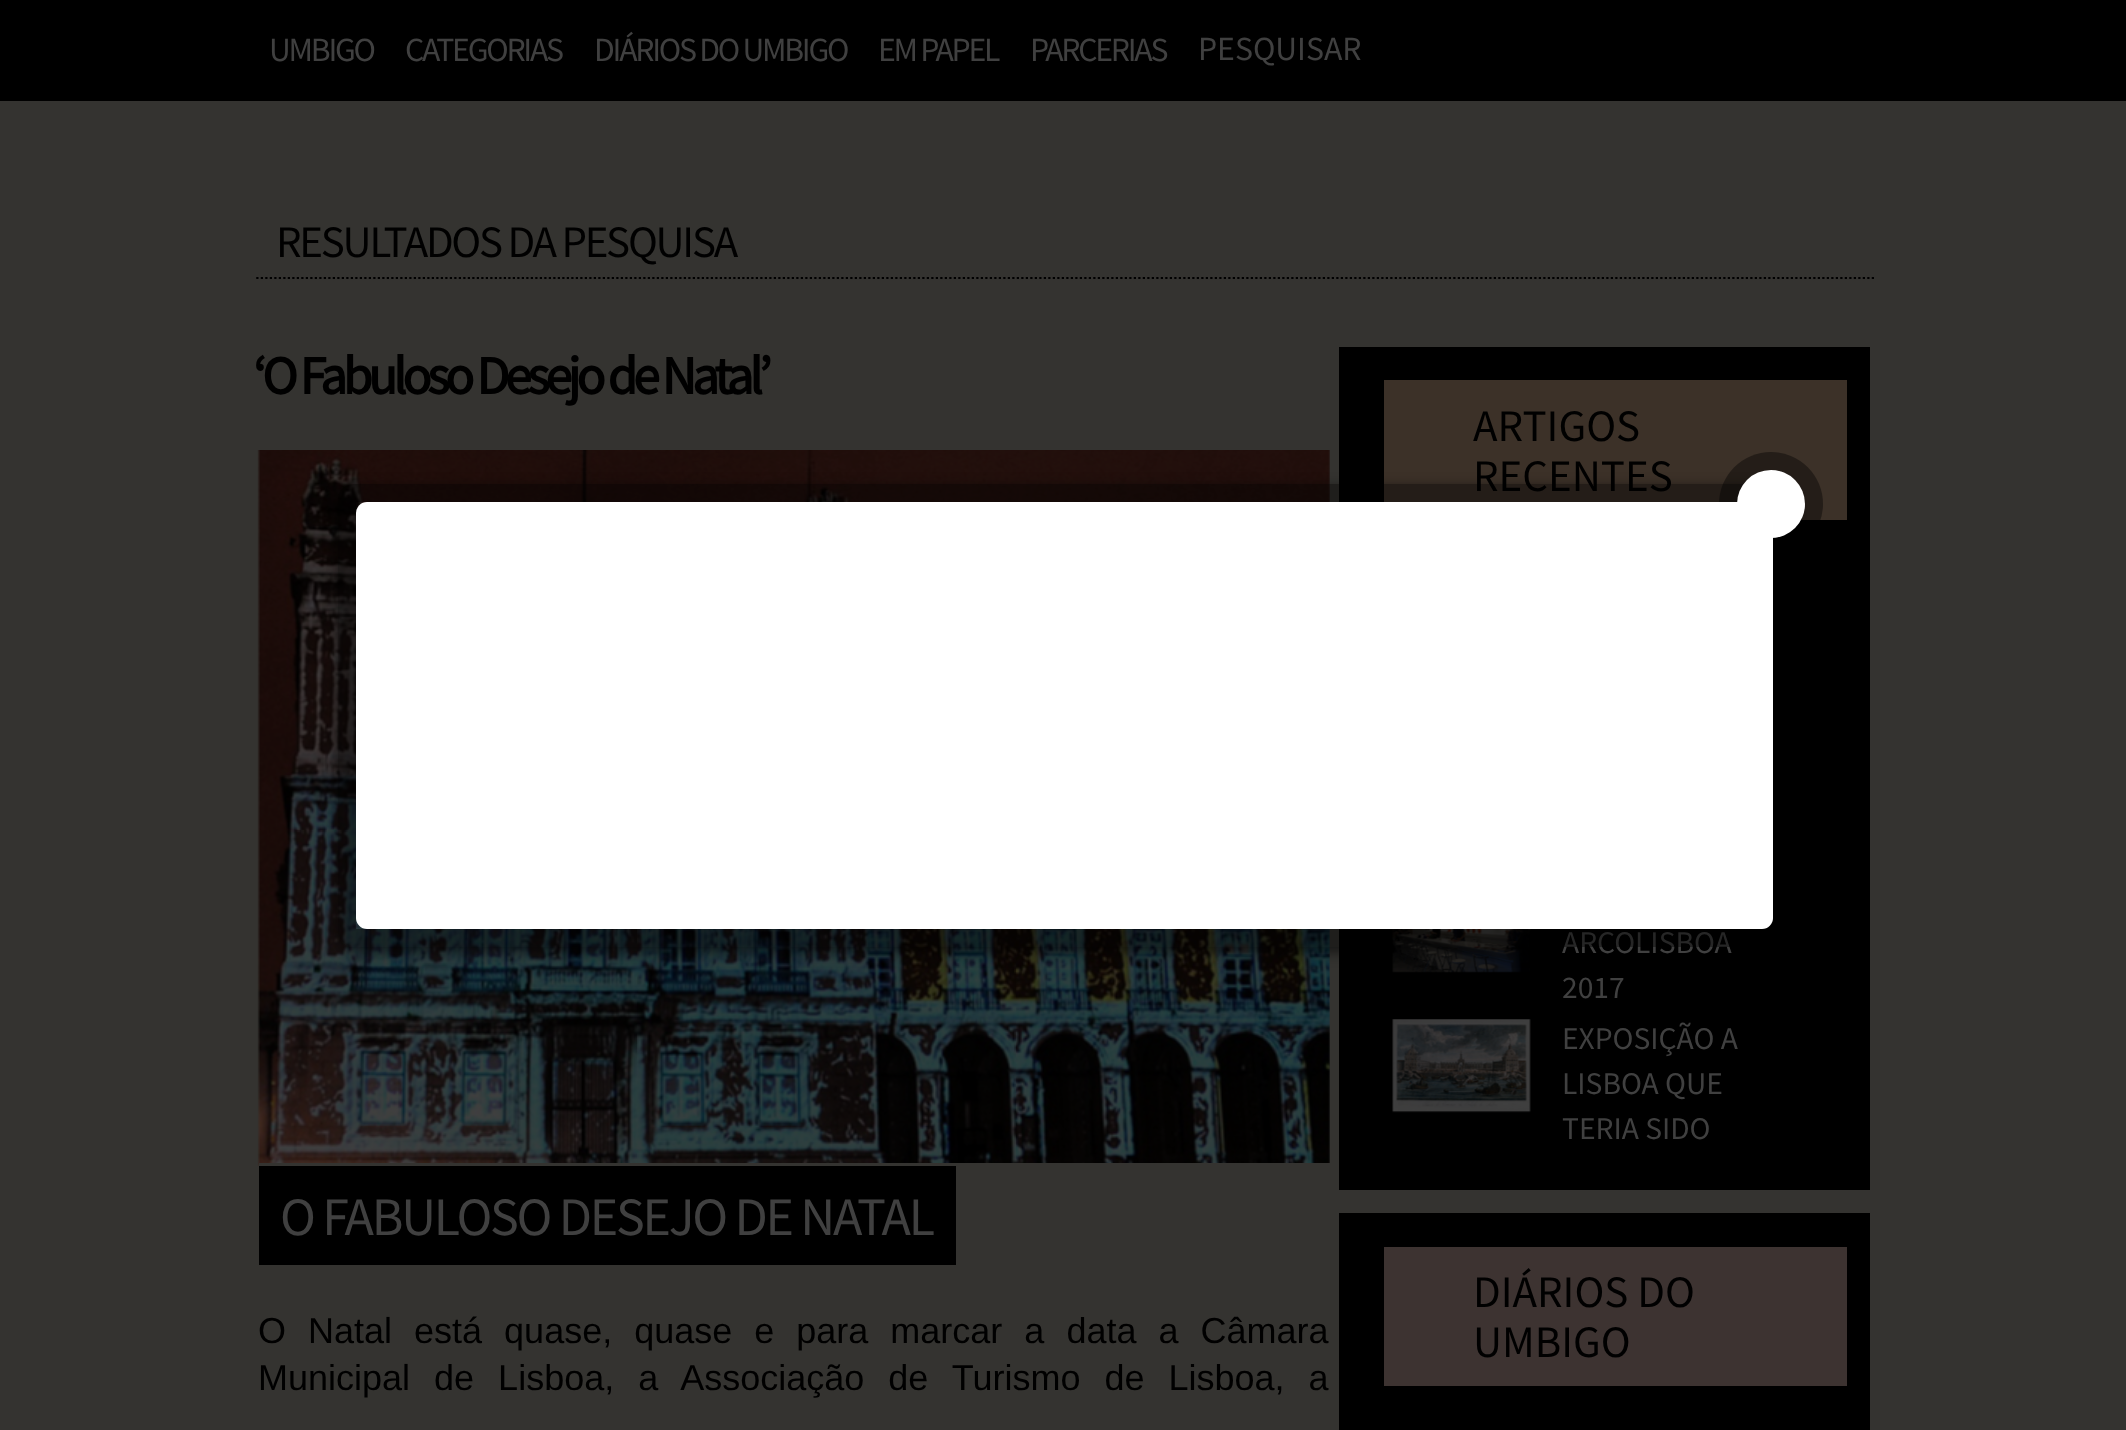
<svg xmlns="http://www.w3.org/2000/svg" width="2126" height="1430" viewBox="0 0 2126 1430">
  <defs>
    <clipPath id="clip1"><path d="M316 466H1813V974H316ZM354 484H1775C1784 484 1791 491 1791 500V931C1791 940 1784 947 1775 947H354C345 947 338 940 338 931V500C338 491 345 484 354 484Z" clip-rule="evenodd"/></clipPath>
  </defs>
  <rect width="100%" height="100%" fill="#343330"/>
  <path d="M0 0h2126v101H0z" fill="#000"/>
  <path d="M254 277h1620v2H254z" fill="#000"/>
  <path d="M254 278H1874" fill="none" stroke="#343330" stroke-width="2.2" stroke-dasharray="2.25 2.25"/>
  <image x="257" y="450" width="1073" height="716" href="img/1.png"/>
  <path d="M259 1163h1071v3H259z" fill="#343330"/>
  <path d="M259 1166h697v99H259z" fill="#000"/>
  <path d="M1339 347h531v1083H1339z" fill="#000"/>
  <path d="M1384 380h463v140H1384z" fill="#3c3128"/>
  <image x="1392" y="929" width="139" height="44" href="img/2.png"/>
  <image x="1392" y="1019" width="139" height="94" href="img/3.png"/>
  <path d="M1339 1190h531v23H1339z" fill="#343330"/>
  <path d="M1384 1247h463v139H1384z" fill="#3d3331"/>
  <g clip-path="url(#clip1)">
    <rect x="338" y="488" width="1453" height="464" rx="16" fill="#00000099" filter="blur(7px)"/>
  </g>
  <g font-family="Source Sans Pro" font-size="33.75" letter-spacing="-2.25" fill="#404040">
    <text x="269" y="61">UMBIGO</text>
    <text x="405" y="61">CATEGORIAS</text>
    <text x="594" y="61">DIÁRIOS DO UMBIGO</text>
    <text x="878" y="61">EM PAPEL</text>
    <text x="1030" y="61">PARCERIAS</text>
  </g>
  <text x="1198" y="60" font-family="Source Sans Pro" font-size="33.75" fill="#404040">PESQUISAR</text>
  <text x="276" y="257" font-family="Source Sans Pro" font-size="45" letter-spacing="-2.25" fill="#000">RESULTADOS DA PESQUISA</text>
  <text x="253" y="394" font-family="Source Sans Pro" font-size="54" font-weight="bold" letter-spacing="-4.5" fill="#000">‘O Fabuloso Desejo de Natal’</text>
  <text x="280" y="1235" font-family="Source Sans Pro" font-size="54" letter-spacing="-2.25" fill="#404040">O FABULOSO DESEJO DE NATAL</text>
  <g font-family="Liberation Sans" font-size="36" fill="#000">
    <text x="258" y="1343" word-spacing="12">O Natal está quase, quase e para marcar a data a Câmara</text>
    <text x="258" y="1390" word-spacing="14">Municipal de Lisboa, a Associação de Turismo de Lisboa, a</text>
  </g>
  <g font-family="Source Sans Pro" font-size="45" fill="#000">
    <text x="1473" y="441">ARTIGOS</text>
    <text x="1473" y="491">RECENTES</text>
  </g>
  <g font-family="Source Sans Pro" font-size="31.5" fill="#404040">
    <text x="1562" y="953">ARCOLISBOA</text>
    <text x="1562" y="998">2017</text>
    <text x="1562" y="1049">EXPOSIÇÃO A</text>
    <text x="1562" y="1094">LISBOA QUE</text>
    <text x="1562" y="1139">TERIA SIDO</text>
  </g>
  <g font-family="Source Sans Pro" font-size="45" fill="#000">
    <text x="1473" y="1307">DIÁRIOS DO</text>
    <text x="1473" y="1357">UMBIGO</text>
  </g>
  <rect x="347" y="493" width="1435" height="445" rx="7" fill="none" stroke="#00000066" stroke-width="18"/>
  <circle cx="1771" cy="504" r="52" fill="#00000066"/>
  <rect x="356" y="502" width="1417" height="427" rx="11" fill="#fff"/>
  <circle cx="1771" cy="504" r="34" fill="#fff"/>
</svg>
